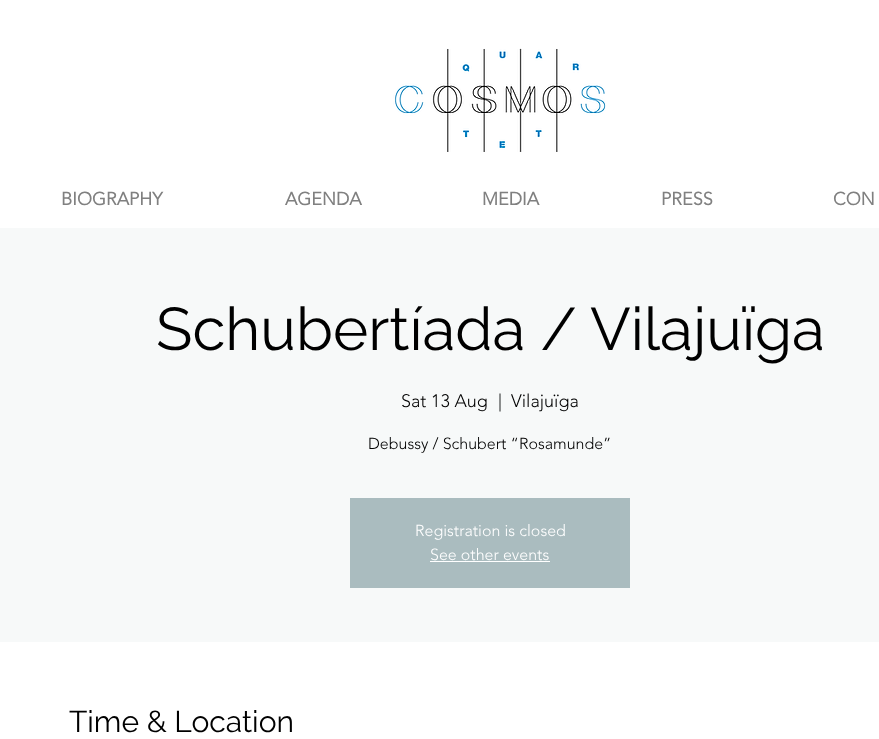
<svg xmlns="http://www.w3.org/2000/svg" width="879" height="739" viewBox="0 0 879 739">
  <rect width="100%" height="100%" fill="#fff"/>
  <image x="393" y="48" width="213" height="104" href="img/1.png"/>
  <path d="M0 228h879v414H0z" fill="#f7f9f9"/>
  <path d="M350 498h280v90H350z" fill="#aabcbf"/>
  <path d="M430 561h120v1H430z" fill="#fff"/>
  <g font-family="'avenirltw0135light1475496'" font-size="18" font-weight="bold" fill="#808080">
    <text x="61" y="205">BIOGRAPHY</text>
    <text x="285" y="205">AGENDA</text>
    <text x="482" y="205">MEDIA</text>
    <text x="661" y="205">PRESS</text>
    <text x="833" y="205">CON</text>
  </g>
  <text x="156" y="350" font-family="Raleway" font-size="60" fill="#000">Schubertíada / Vilajuïga</text>
  <g font-family="'avenirltw0135light1475496'" font-size="18" font-weight="300" fill="#000">
    <text x="401" y="407">Sat 13 Aug</text>
    <text x="498" y="407">|</text>
    <text x="511" y="407">Vilajuïga</text>
  </g>
  <text x="368" y="449" font-family="'avenirltw0135light1475496'" font-size="16" font-weight="300" fill="#000">Debussy / Schubert “Rosamunde”</text>
  <g font-family="'avenirltw0135light1475496'" font-size="16" font-weight="300" fill="#fff">
    <text x="415" y="536">Registration is closed</text>
    <text x="430" y="560">See other events</text>
  </g>
  <text x="69" y="732" font-family="Raleway" font-size="30" fill="#000">Time &amp; Location</text>
</svg>
